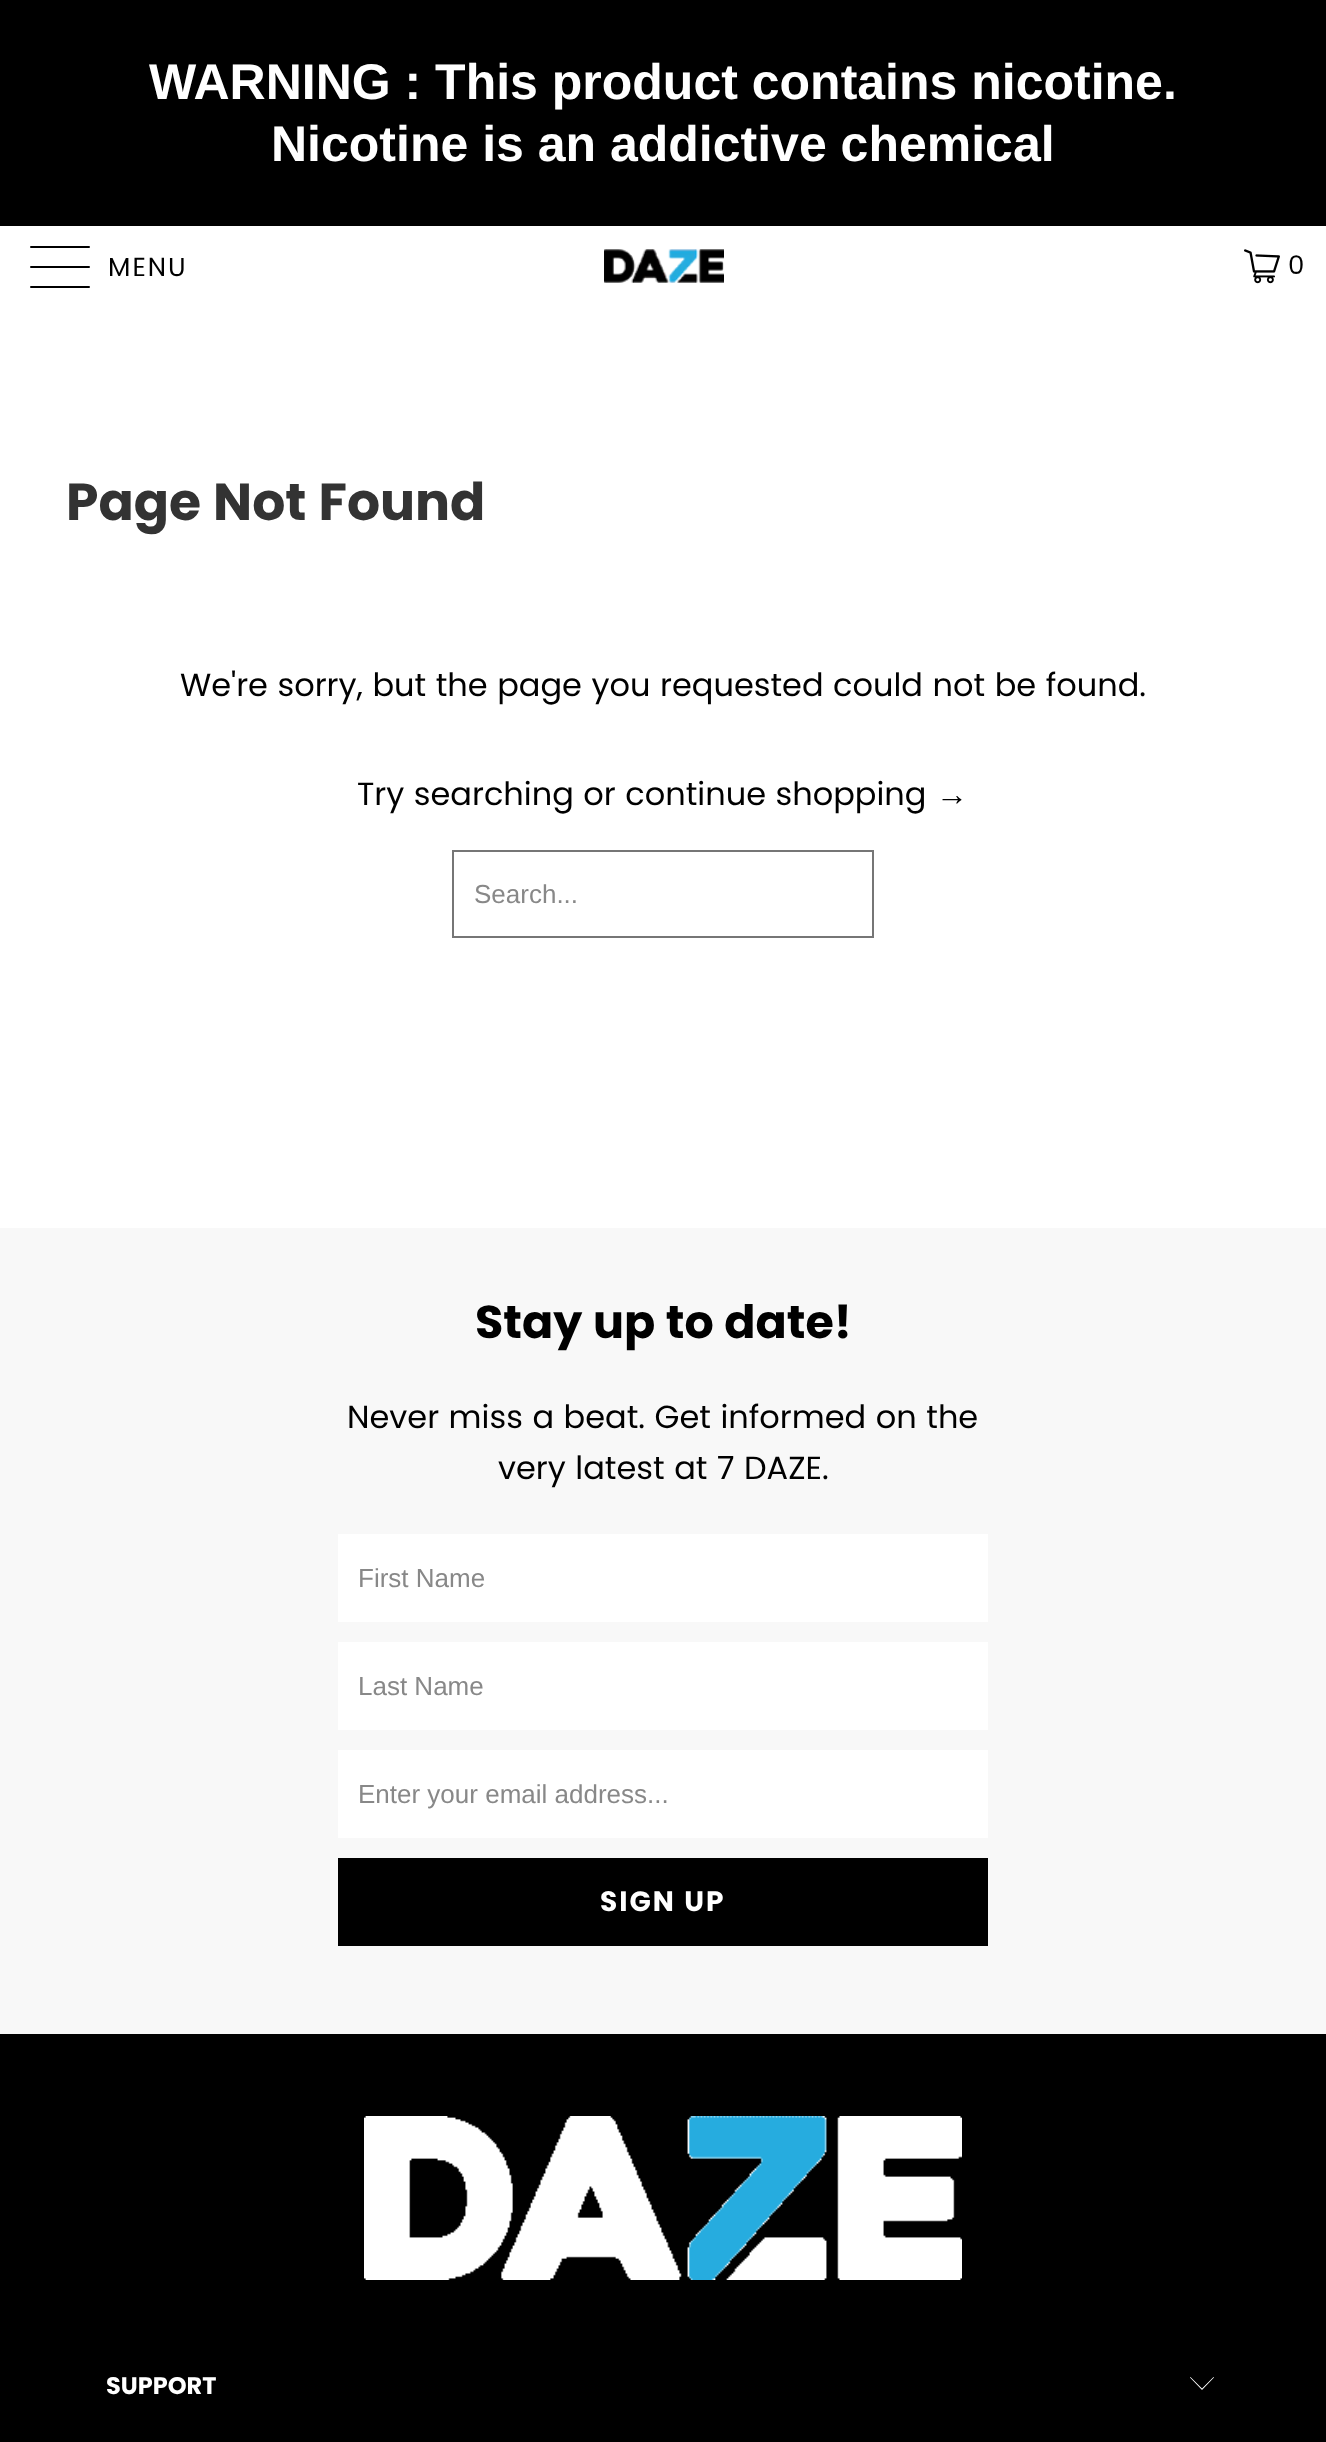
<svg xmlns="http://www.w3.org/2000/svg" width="1326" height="2442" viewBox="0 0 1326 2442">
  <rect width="100%" height="100%" fill="#fff"/>
  <path d="M0 0h1326v226H0z" fill="#000"/>
  <rect x="30" y="246" width="60" height="2" rx="1" fill="#000"/>
  <rect x="30" y="266" width="60" height="2" rx="1" fill="#000"/>
  <rect x="30" y="286" width="60" height="2" rx="1" fill="#000"/>
  <image x="604" y="249" width="120" height="34" href="img/1.png"/>
  <image x="1244" y="249" width="36" height="35" href="img/2.png"/>
  <path d="M453 851h420v86H453z" fill="none" stroke="#767676" stroke-width="2"/>
  <path d="M0 1228h1326v806H0z" fill="#f8f8f8"/>
  <path d="M338 1534h650v88H338z" fill="#fff"/>
  <path d="M338 1642h650v88H338z" fill="#fff"/>
  <path d="M338 1750h650v88H338z" fill="#fff"/>
  <path d="M338 1858h650v88H338z" fill="#000"/>
  <path d="M0 2034h1326v408H0z" fill="#000"/>
  <image x="364" y="2116" width="598" height="164" href="img/3.png"/>
  <path d="M1202 2390L1190 2377.5L1190.5 2377L1202 2388.5L1213.5 2377L1214 2377.5Z" fill="#fff"/>
  <g font-family="Liberation Sans" font-size="50" font-weight="bold" fill="#fff">
    <text x="149" y="99">WARNING : This product contains nicotine.</text>
    <text x="271" y="161">Nicotine is an addictive chemical</text>
  </g>
  <g font-family="Poppins" font-size="26" letter-spacing="2" fill="#000">
    <text x="108" y="276">MENU</text>
    <text x="1288" y="274">0</text>
  </g>
  <text x="66" y="520" font-family="Poppins" font-size="52" font-weight="bold" fill="#333">Page Not Found</text>
  <g font-family="Poppins" font-size="32" fill="#000">
    <text x="180" y="696">We're sorry, but the page you requested could not be found.</text>
    <text x="357" y="805">Try searching or continue shopping</text>
  </g>
  <text x="936" y="805" font-family="Liberation Sans" font-size="32" fill="#000">→</text>
  <text x="474" y="903" font-family="Liberation Sans" font-size="26" fill="#888">Search...</text>
  <text x="475" y="1338" font-family="Poppins" font-size="46" font-weight="bold" fill="#000">Stay up to date!</text>
  <g font-family="Poppins" font-size="32" fill="#000">
    <text x="347" y="1428">Never miss a beat. Get informed on the</text>
    <text x="498" y="1479">very latest at 7 DAZE.</text>
  </g>
  <g font-family="Liberation Sans" font-size="26" fill="#888">
    <text x="358" y="1587">First Name</text>
    <text x="358" y="1695">Last Name</text>
    <text x="358" y="1803">Enter your email address...</text>
  </g>
  <text x="600" y="1911" font-family="Poppins" font-size="28" font-weight="bold" letter-spacing="2" fill="#fff">SIGN UP</text>
  <text x="106" y="2394" font-family="Poppins" font-size="24" font-weight="bold" fill="#fff">SUPPORT</text>
</svg>
